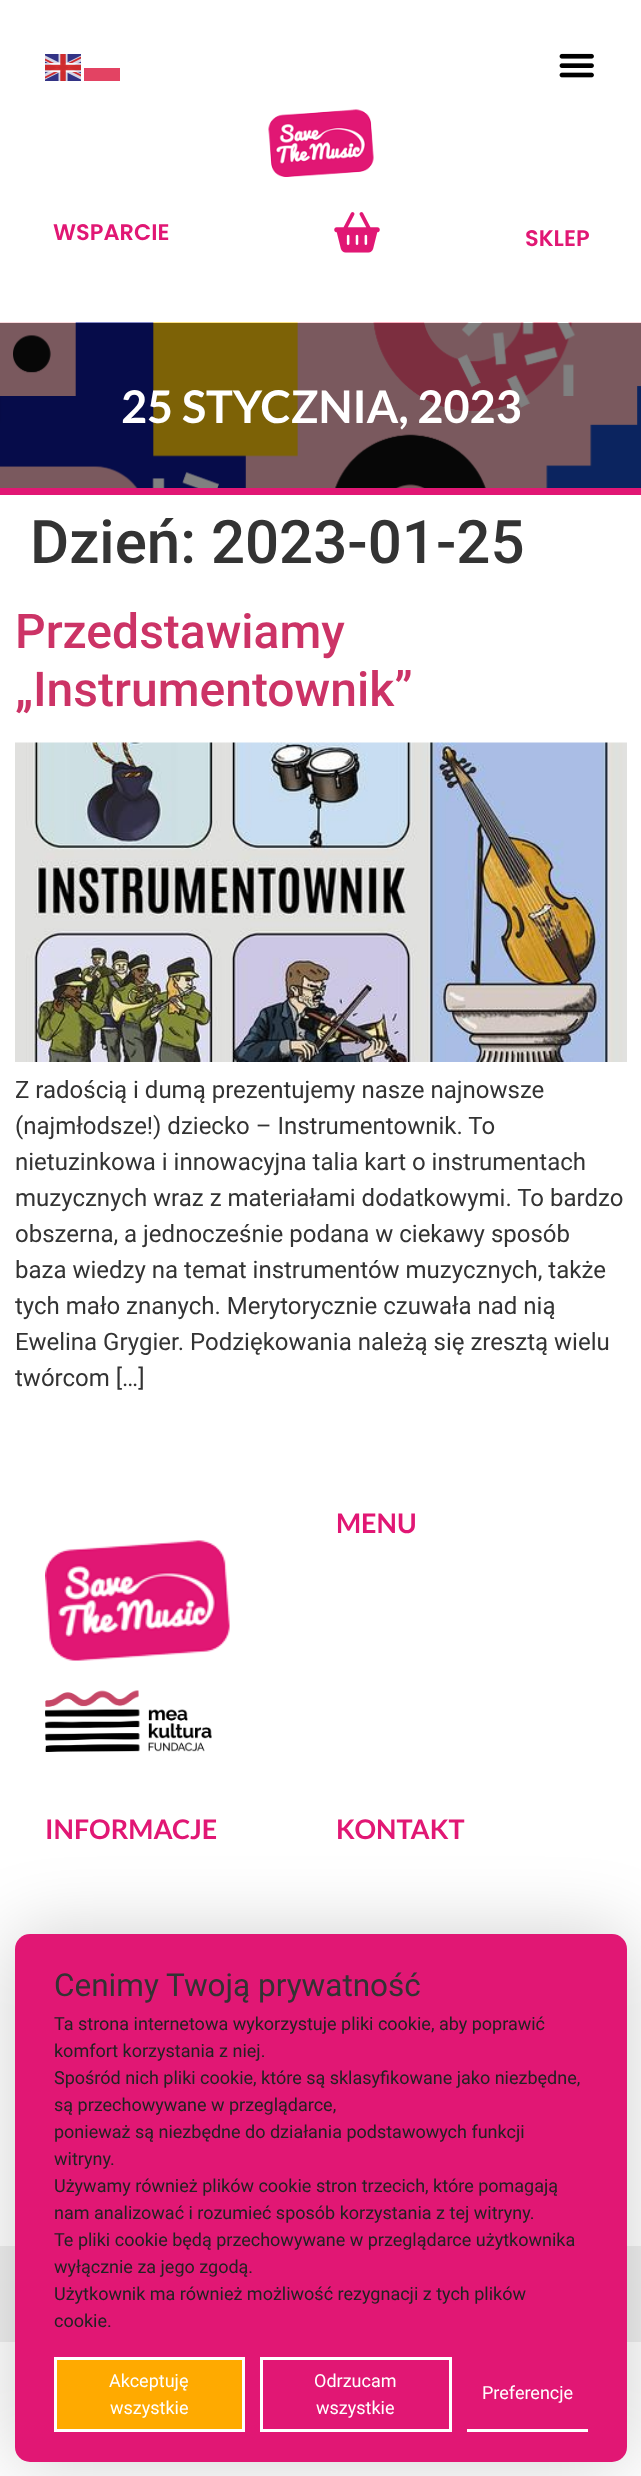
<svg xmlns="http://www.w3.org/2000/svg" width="641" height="2476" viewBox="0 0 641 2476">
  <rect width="100%" height="100%" fill="#fff"/>
  <image x="45" y="54" width="36" height="27" href="img/1.png"/>
  <path d="M84 68h36v13H84z" fill="#e34363"/>
  <image x="559" y="53" width="35" height="25" href="img/2.png"/>
  <image x="268" y="109" width="106" height="68" href="img/3.png"/>
  <image x="334" y="212" width="46" height="41" href="img/4.png"/>
  <image x="0" y="322" width="641" height="166" href="img/5.png"/>
  <path d="M0 488h641v7H0z" fill="#e11774"/>
  <image x="15" y="742" width="612" height="320" href="img/6.png"/>
  <image x="45" y="1540" width="185" height="121" href="img/7.png"/>
  <image x="45" y="1690" width="167" height="62" href="img/8.png"/>
  <path d="M0 2246h641v96H0z" fill="#efefef"/>
  <rect x="15" y="1934" width="612" height="528" rx="15" fill="#00000030" filter="blur(37.5px)"/>
  <rect x="15" y="1934" width="612" height="528" rx="15" fill="#e11774"/>
  <path d="M55.5 2358.5h188v72H55.5z" fill="#fa0" stroke="#fff" stroke-width="3"/>
  <path d="M261.5 2358.5h189v72H261.5z" fill="none" stroke="#fff" stroke-width="3"/>
  <path d="M467 2429h121v3H467z" fill="#fff"/>
  <g font-family="Poppins" font-size="22.5" font-weight="600" fill="#e11774">
    <text x="53" y="240">WSPARCIE</text>
    <text x="525" y="246">SKLEP</text>
  </g>
  <text x="121" y="423" font-family="Lato" font-size="45" font-weight="bold" fill="#fff">25 STYCZNIA, 2023</text>
  <text x="30" y="563" font-family="Roboto" font-size="60" font-weight="500" fill="#333">Dzień: 2023-01-25</text>
  <g font-family="Roboto" font-size="48" font-weight="500" fill="#c36">
    <text x="15" y="648">Przedstawiamy</text>
    <text x="15" y="706">„Instrumentownik”</text>
  </g>
  <g font-family="Roboto" font-size="24" fill="#333">
    <text x="15" y="1098">Z radością i dumą prezentujemy nasze najnowsze</text>
    <text x="15" y="1134">(najmłodsze!) dziecko – Instrumentownik. To</text>
    <text x="15" y="1170">nietuzinkowa i innowacyjna talia kart o instrumentach</text>
    <text x="15" y="1206">muzycznych wraz z materiałami dodatkowymi. To bardzo</text>
    <text x="15" y="1242">obszerna, a jednocześnie podana w ciekawy sposób</text>
    <text x="15" y="1278">baza wiedzy na temat instrumentów muzycznych, także</text>
    <text x="15" y="1314">tych mało znanych. Merytorycznie czuwała nad nią</text>
    <text x="15" y="1350">Ewelina Grygier. Podziękowania należą się zresztą wielu</text>
    <text x="15" y="1386">twórcom […]</text>
  </g>
  <g font-family="Lato" font-size="27" font-weight="bold" fill="#e11774">
    <text x="336" y="1533">MENU</text>
    <text x="45" y="1839">INFORMACJE</text>
    <text x="336" y="1839">KONTAKT</text>
  </g>
  <text x="54" y="1996" font-family="Roboto" font-size="31.5" fill="#333">Cenimy Twoją prywatność</text>
  <g font-family="Roboto" font-size="18" fill="#222">
    <text x="54" y="2030">Ta strona internetowa wykorzystuje pliki cookie, aby poprawić</text>
    <text x="54" y="2057">komfort korzystania z niej.</text>
    <text x="54" y="2084">Spośród nich pliki cookie, które są sklasyfikowane jako niezbędne,</text>
    <text x="54" y="2111">są przechowywane w przeglądarce,</text>
    <text x="54" y="2138">ponieważ są niezbędne do działania podstawowych funkcji</text>
    <text x="54" y="2165">witryny.</text>
    <text x="54" y="2192">Używamy również plików cookie stron trzecich, które pomagają</text>
    <text x="54" y="2219">nam analizować i rozumieć sposób korzystania z tej witryny.</text>
    <text x="54" y="2246">Te pliki cookie będą przechowywane w przeglądarce użytkownika</text>
    <text x="54" y="2273">wyłącznie za jego zgodą.</text>
    <text x="54" y="2300">Użytkownik ma również możliwość rezygnacji z tych plików</text>
    <text x="54" y="2327">cookie.</text>
  </g>
  <g font-family="Roboto" font-size="18" fill="#fff">
    <text x="109" y="2387">Akceptuję</text>
    <text x="110" y="2414">wszystkie</text>
    <text x="314" y="2387">Odrzucam</text>
    <text x="316" y="2414">wszystkie</text>
    <text x="482" y="2399">Preferencje</text>
  </g>
</svg>
